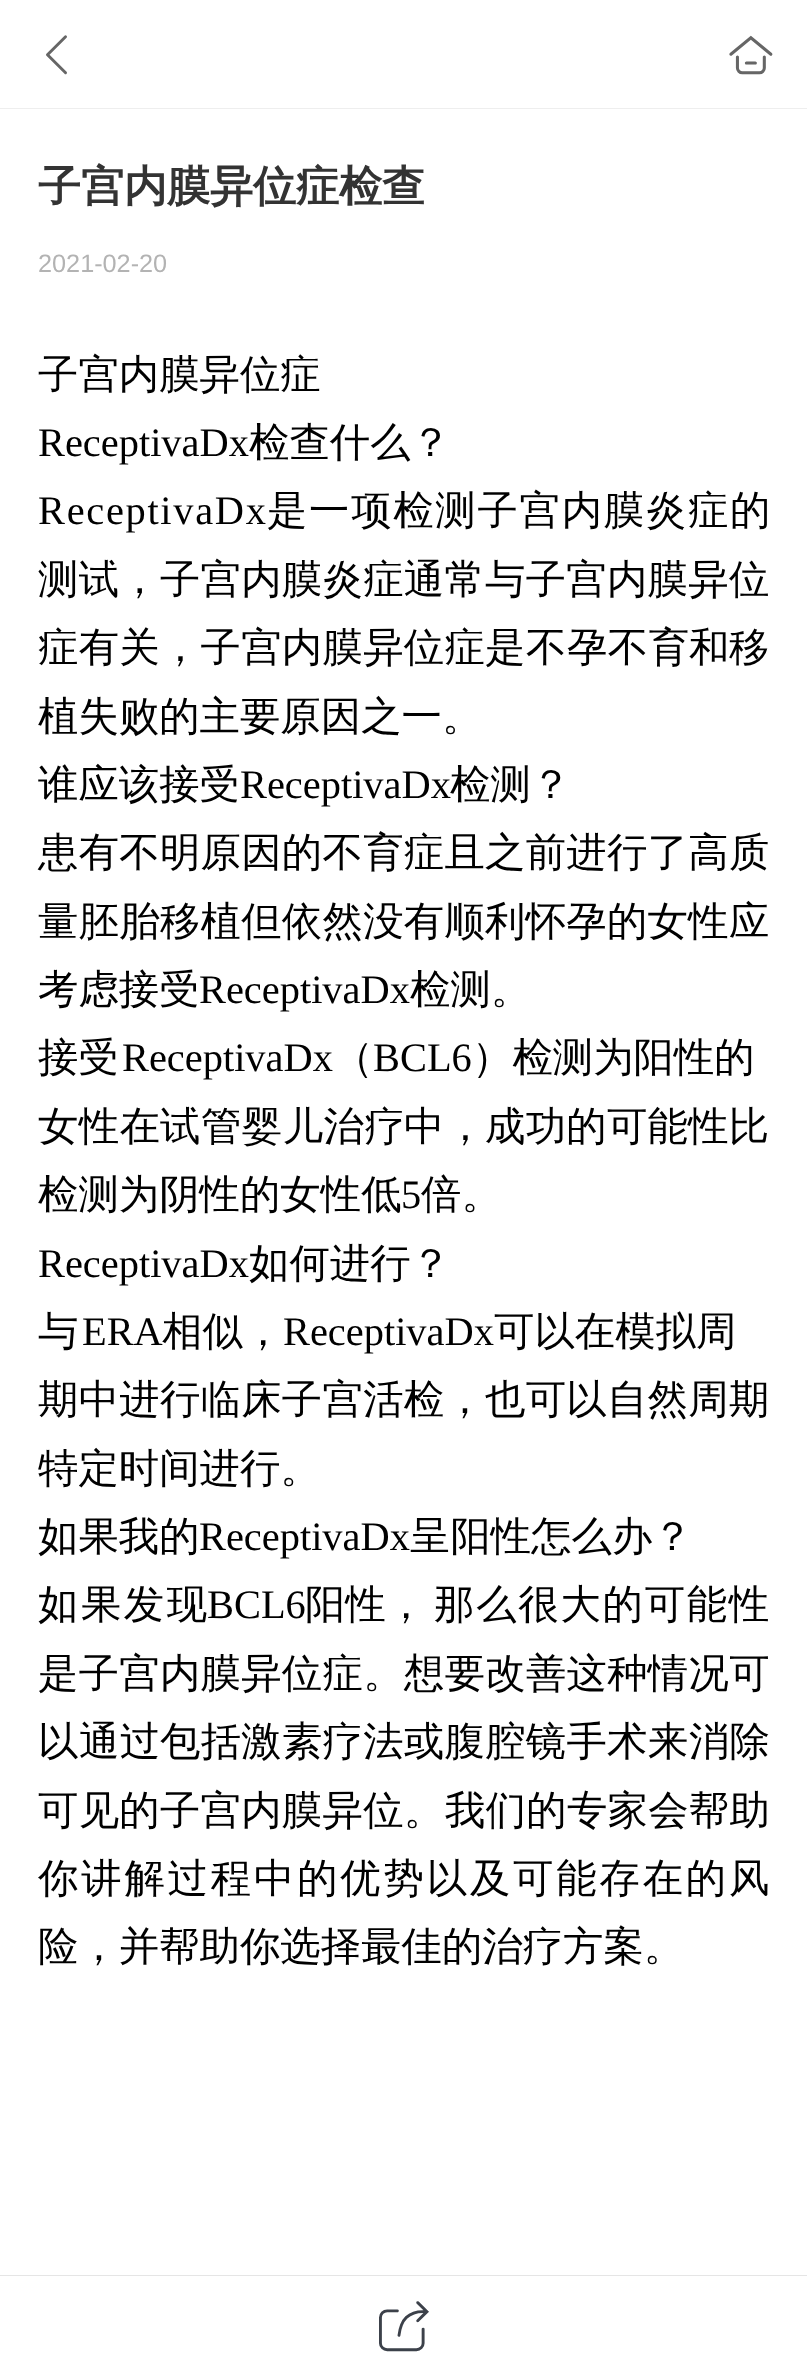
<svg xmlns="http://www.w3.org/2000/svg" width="807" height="2376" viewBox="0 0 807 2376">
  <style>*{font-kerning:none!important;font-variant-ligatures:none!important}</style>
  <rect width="100%" height="100%" fill="#fff"/>
  <path d="M0 108h807v1H0z" fill="#eee"/>
  <path d="M0 2275h807v1H0z" fill="#e5e5e5"/>
  <text x="37" y="71" font-family="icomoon" font-size="39" fill="#666">򰊔</text>
  <text x="729" y="73" font-family="icomoon" font-size="43" fill="#666">򰌓</text>
  <text x="38" y="201" font-family="WenQuanYi Zen Hei" font-size="43" font-weight="bold" fill="#333">子宫内膜异位症检查</text>
  <text x="38" y="272" font-family="Liberation Sans" font-size="25.25" fill="#b3b3b3">2021-02-20</text>
  <text x="38" y="388" font-family="WenQuanYi Zen Hei" font-size="40.4" font-weight="500" fill="#000">子宫内膜异位症</text>
  <text x="38" y="456" font-family="Liberation Serif" font-size="40.4" fill="#000">ReceptivaDx</text>
  <text x="249" y="456" font-family="WenQuanYi Zen Hei" font-size="40.4" font-weight="500" fill="#000">检查什么？</text>
  <text x="38" y="524" font-family="Liberation Serif" font-size="40.4" letter-spacing="1.7" fill="#000">ReceptivaDx</text>
  <text x="267" y="524" font-family="WenQuanYi Zen Hei" font-size="40.4" font-weight="500" letter-spacing="1.7" fill="#000">是一项检测子宫内膜炎症的</text>
  <g font-family="WenQuanYi Zen Hei" font-size="40.4" font-weight="500" letter-spacing="0.25" fill="#000">
    <text x="38" y="593">测试，子宫内膜炎症通常与子宫内膜异位</text>
    <text x="38" y="661">症有关，子宫内膜异位症是</text>
  </g>
  <text x="526" y="661" font-family="WenQuanYi Zen Hei" font-size="40.4" font-weight="500" letter-spacing="0.5" fill="#000">不孕不育</text>
  <g font-family="WenQuanYi Zen Hei" font-size="40.4" font-weight="500" fill="#000">
    <text x="689" y="661">和</text>
    <text x="729" y="661">移</text>
    <text x="38" y="730">植失败的主要原因之一。</text>
    <text x="38" y="798">谁应该接受</text>
  </g>
  <text x="240" y="798" font-family="Liberation Serif" font-size="40.4" fill="#000">ReceptivaDx</text>
  <text x="450" y="798" font-family="WenQuanYi Zen Hei" font-size="40.4" font-weight="500" fill="#000">检测？</text>
  <g font-family="WenQuanYi Zen Hei" font-size="40.4" font-weight="500" letter-spacing="0.25" fill="#000">
    <text x="38" y="866">患有不明原因的不育症且之前进行了高质</text>
    <text x="38" y="935">量胚胎移植但依然没有顺利怀孕的女性应</text>
  </g>
  <text x="38" y="1003" font-family="WenQuanYi Zen Hei" font-size="40.4" font-weight="500" fill="#000">考虑接受</text>
  <text x="199" y="1003" font-family="Liberation Serif" font-size="40.4" fill="#000">ReceptivaDx</text>
  <g font-family="WenQuanYi Zen Hei" font-size="40.4" font-weight="500" fill="#000">
    <text x="410" y="1003">检测。</text>
    <text x="38" y="1071">接受</text>
  </g>
  <text x="122" y="1071" font-family="Liberation Serif" font-size="40.4" fill="#000">ReceptivaDx</text>
  <text x="333" y="1071" font-family="WenQuanYi Zen Hei" font-size="40.4" font-weight="500" fill="#000">（</text>
  <text x="373" y="1071" font-family="Liberation Serif" font-size="40.4" fill="#000">BCL6</text>
  <text x="472" y="1071" font-family="WenQuanYi Zen Hei" font-size="40.4" font-weight="500" fill="#000">）检测为阳性的</text>
  <g font-family="WenQuanYi Zen Hei" font-size="40.4" font-weight="500" letter-spacing="0.5" fill="#000">
    <text x="38" y="1140">女性在</text>
    <text x="160" y="1140">试管婴儿治疗</text>
  </g>
  <g font-family="WenQuanYi Zen Hei" font-size="40.4" font-weight="500" fill="#000">
    <text x="404" y="1140">中</text>
    <text x="445" y="1140">，</text>
  </g>
  <text x="485" y="1140" font-family="WenQuanYi Zen Hei" font-size="40.4" font-weight="500" letter-spacing="0.25" fill="#000">成功的可能性比</text>
  <text x="38" y="1208" font-family="WenQuanYi Zen Hei" font-size="40.4" font-weight="500" fill="#000">检测为阴性的女性低</text>
  <text x="401" y="1208" font-family="Liberation Serif" font-size="40.4" fill="#000">5</text>
  <text x="421" y="1208" font-family="WenQuanYi Zen Hei" font-size="40.4" font-weight="500" fill="#000">倍。</text>
  <text x="38" y="1277" font-family="Liberation Serif" font-size="40.4" fill="#000">ReceptivaDx</text>
  <g font-family="WenQuanYi Zen Hei" font-size="40.4" font-weight="500" fill="#000">
    <text x="249" y="1277">如何进行？</text>
    <text x="38" y="1345">与</text>
  </g>
  <text x="82" y="1345" font-family="Liberation Serif" font-size="40.4" fill="#000">ERA</text>
  <text x="162" y="1345" font-family="WenQuanYi Zen Hei" font-size="40.4" font-weight="500" fill="#000">相似，</text>
  <text x="283" y="1345" font-family="Liberation Serif" font-size="40.4" fill="#000">ReceptivaDx</text>
  <text x="494" y="1345" font-family="WenQuanYi Zen Hei" font-size="40.4" font-weight="500" fill="#000">可以在模拟周</text>
  <text x="38" y="1413" font-family="WenQuanYi Zen Hei" font-size="40.4" font-weight="500" letter-spacing="0.25" fill="#000">期中进行临床子宫活检，也可以自然周期</text>
  <g font-family="WenQuanYi Zen Hei" font-size="40.4" font-weight="500" fill="#000">
    <text x="38" y="1482">特定时间进行。</text>
    <text x="38" y="1550">如果我的</text>
  </g>
  <text x="199" y="1550" font-family="Liberation Serif" font-size="40.4" fill="#000">ReceptivaDx</text>
  <text x="410" y="1550" font-family="WenQuanYi Zen Hei" font-size="40.4" font-weight="500" fill="#000">呈阳性怎么办？</text>
  <text x="38" y="1618" font-family="WenQuanYi Zen Hei" font-size="40.4" font-weight="500" letter-spacing="2.5" fill="#000">如果发现</text>
  <text x="207" y="1618" font-family="Liberation Serif" font-size="40.4" fill="#000">BCL6</text>
  <text x="305" y="1618" font-family="WenQuanYi Zen Hei" font-size="40.4" font-weight="500" fill="#000">阳性，</text>
  <text x="434" y="1618" font-family="WenQuanYi Zen Hei" font-size="40.4" font-weight="500" letter-spacing="1.75" fill="#000">那么很大的可能性</text>
  <g font-family="WenQuanYi Zen Hei" font-size="40.4" font-weight="500" letter-spacing="0.25" fill="#000">
    <text x="38" y="1687">是子宫内膜异位症。</text>
    <text x="404" y="1687">想要改善这种情况可</text>
  </g>
  <text x="38" y="1755" font-family="WenQuanYi Zen Hei" font-size="40.4" font-weight="500" letter-spacing="0.5" fill="#000">以通过</text>
  <text x="160" y="1755" font-family="WenQuanYi Zen Hei" font-size="40.4" font-weight="500" letter-spacing="0.25" fill="#000">包括激素疗法或腹腔镜手术</text>
  <g font-family="WenQuanYi Zen Hei" font-size="40.4" font-weight="500" fill="#000">
    <text x="648" y="1755">来</text>
    <text x="689" y="1755">消除</text>
  </g>
  <g font-family="WenQuanYi Zen Hei" font-size="40.4" font-weight="500" letter-spacing="0.25" fill="#000">
    <text x="38" y="1824">可见的子宫内膜异位。</text>
    <text x="445" y="1824">我们的专家会帮助</text>
  </g>
  <text x="38" y="1892" font-family="WenQuanYi Zen Hei" font-size="40.4" font-weight="500" letter-spacing="2.8" fill="#000">你讲解过程中的优势以及可能存在的风</text>
  <text x="38" y="1960" font-family="WenQuanYi Zen Hei" font-size="40.4" font-weight="500" fill="#000">险，并帮助你选择最佳的治疗方案。</text>
  <text x="379" y="2347" font-family="icomoon" font-size="50" fill="#3c414a">򰌐</text>
</svg>
